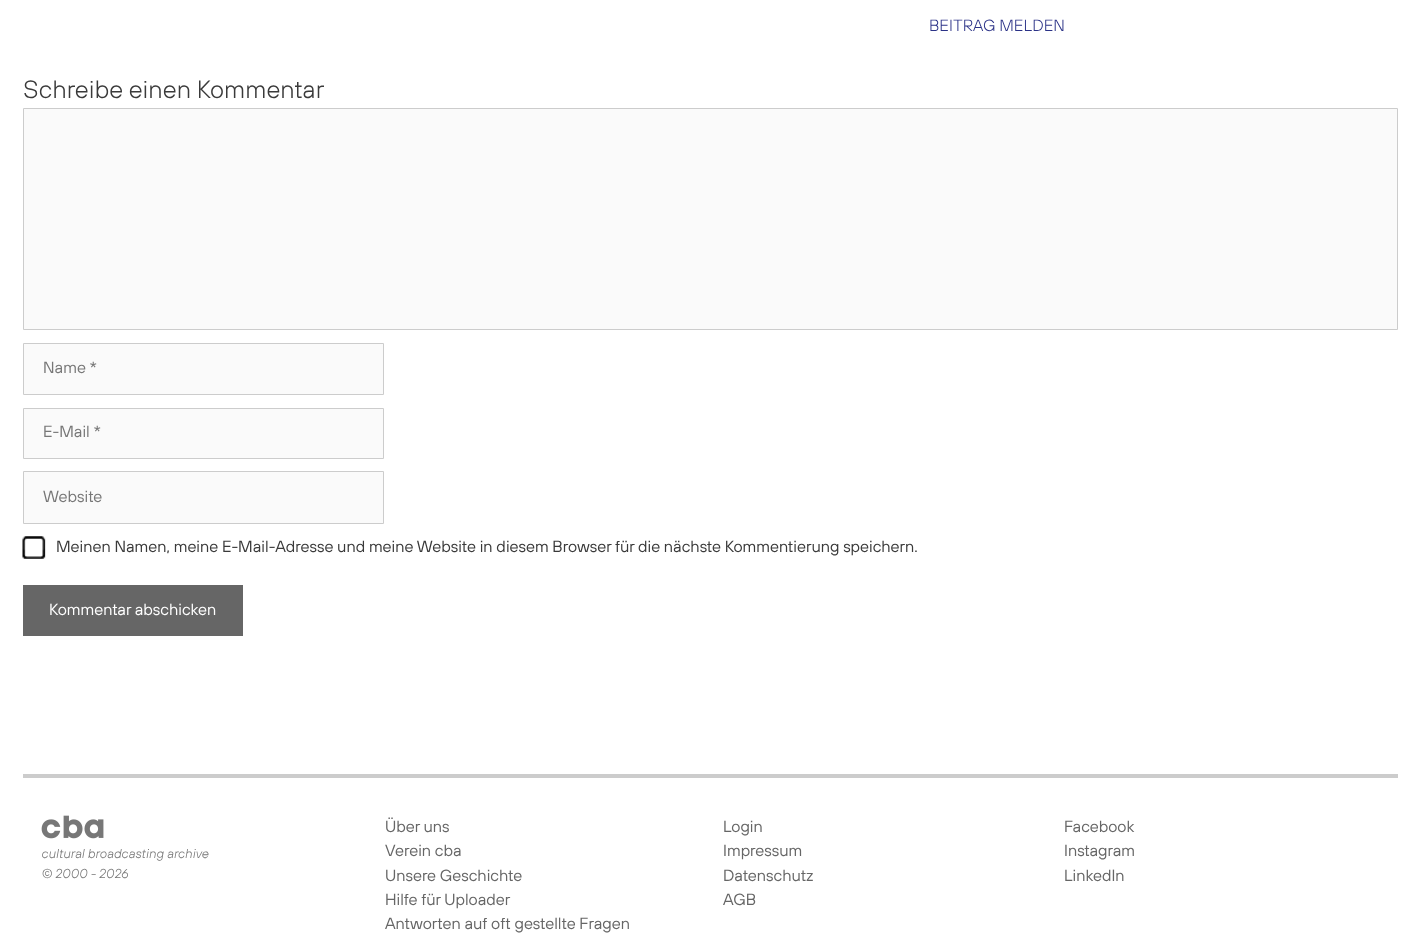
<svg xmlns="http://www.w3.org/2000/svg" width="1420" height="937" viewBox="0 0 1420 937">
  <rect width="100%" height="100%" fill="#fff"/>
  <path d="M23.5 108.5h1374v221H23.5z" fill="#fafafa" stroke="#ccc"/>
  <path d="M23.5 343.5h360v51H23.5z" fill="#fafafa" stroke="#ccc"/>
  <path d="M23.5 408.5h360v50H23.5z" fill="#fafafa" stroke="#ccc"/>
  <path d="M23.5 471.5h360v52H23.5z" fill="#fafafa" stroke="#ccc"/>
  <image x="22" y="536" width="24" height="23" href="img/1.png"/>
  <path d="M23 585h220v51H23z" fill="#666"/>
  <path d="M23 774h1375v4H23z" fill="#ccc"/>
  <image x="41" y="815" width="63" height="24" href="img/2.png"/>
  <text x="929" y="31" font-family="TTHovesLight" font-size="16.25" fill="#2b3287">BEITRAG MELDEN</text>
  <text x="23" y="98" font-family="TTHovesLight" font-size="25" fill="#3a3a3a">Schreibe einen Kommentar</text>
  <g font-family="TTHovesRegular" font-size="16.25" fill="#777">
    <text x="43" y="373">Name *</text>
    <text x="43" y="437">E-Mail *</text>
    <text x="43" y="502">Website</text>
  </g>
  <text x="56" y="552" font-family="TTHovesRegular" font-size="16.25" fill="#3a3a3a">Meinen Namen, meine E-Mail-Adresse und meine Website in diesem Browser für die nächste Kommentierung speichern.</text>
  <text x="49" y="615" font-family="TTHovesRegular" font-size="16.25" fill="#fff">Kommentar abschicken</text>
  <g font-family="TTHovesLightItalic" font-size="13" fill="#777">
    <text x="41" y="858">cultural broadcasting archive</text>
    <text x="41" y="878">© 2000 - 2026</text>
  </g>
  <g font-family="TTHovesRegular" font-size="16.25" fill="#666">
    <text x="385" y="832">Über uns</text>
    <text x="385" y="856">Verein cba</text>
    <text x="385" y="881">Unsere Geschichte</text>
    <text x="385" y="905">Hilfe für Uploader</text>
    <text x="385" y="929">Antworten auf oft gestellte Fragen</text>
    <text x="723" y="832">Login</text>
    <text x="723" y="856">Impressum</text>
    <text x="723" y="881">Datenschutz</text>
    <text x="723" y="905">AGB</text>
    <text x="1064" y="832">Facebook</text>
    <text x="1064" y="856">Instagram</text>
    <text x="1064" y="881">LinkedIn</text>
  </g>
</svg>
